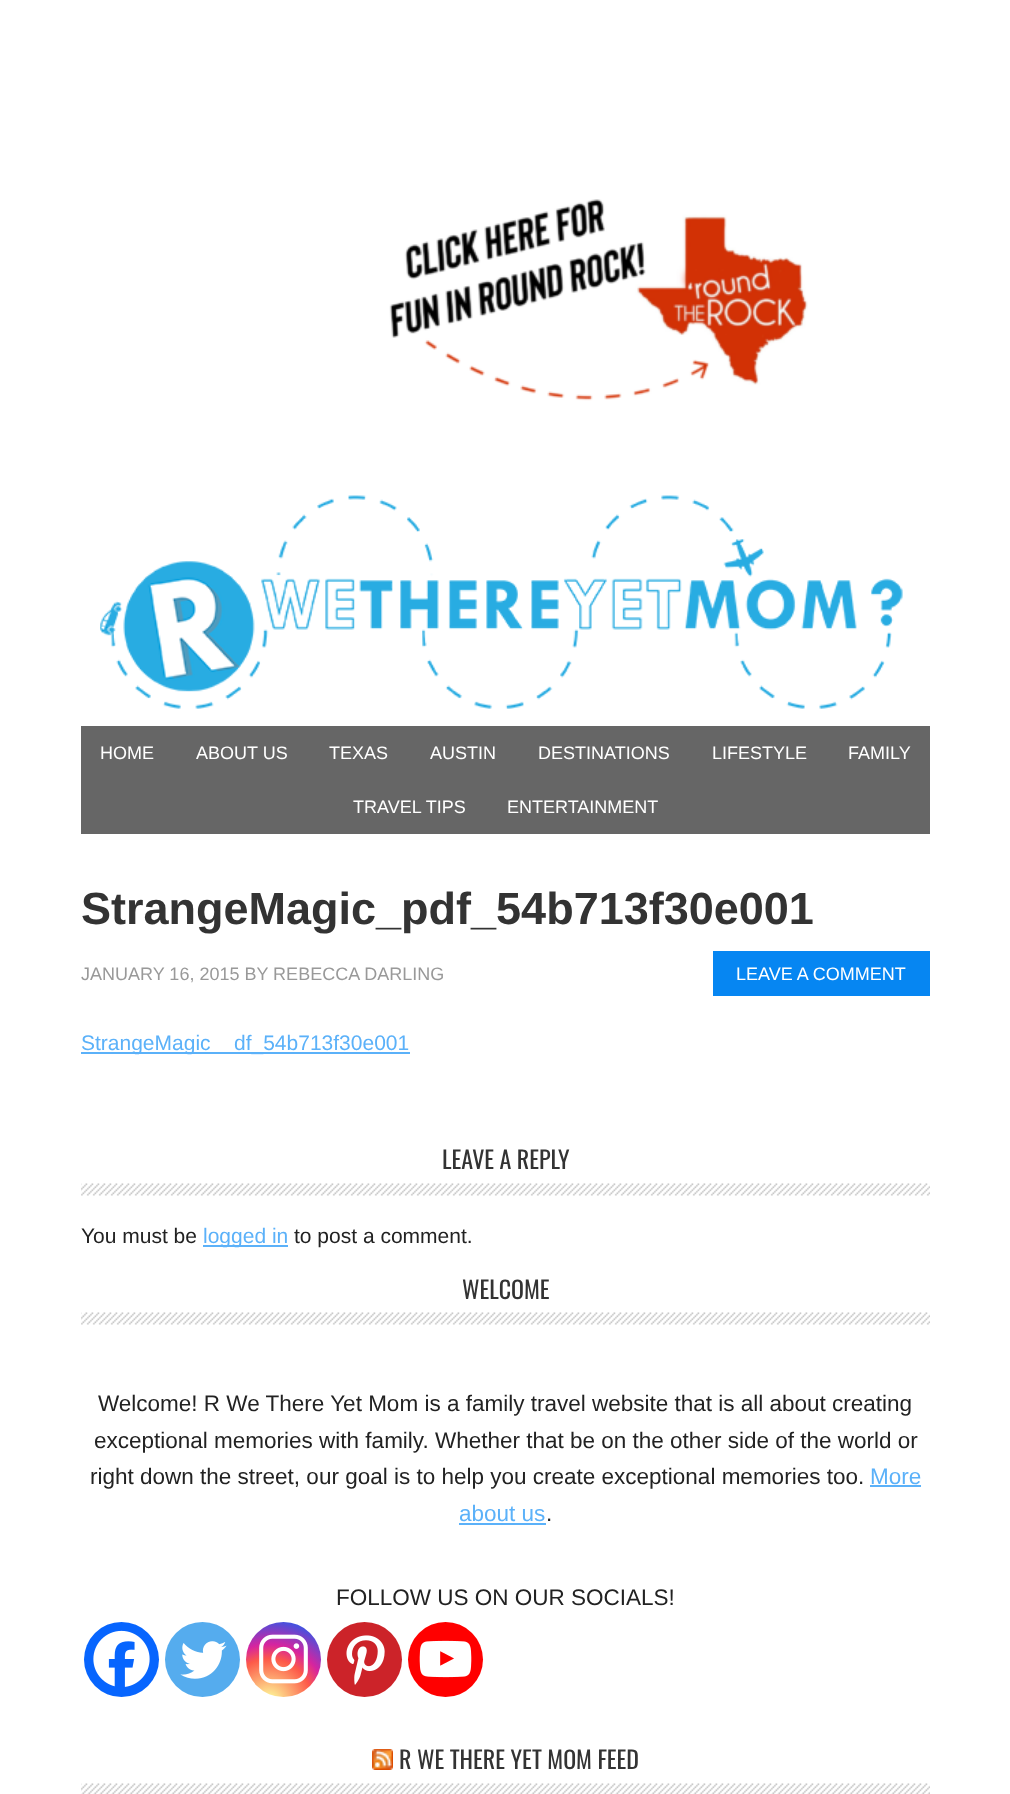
<svg xmlns="http://www.w3.org/2000/svg" width="1010" height="1794" viewBox="0 0 1010 1794">
  <defs>
    <radialGradient id="g1" gradientUnits="userSpaceOnUse" cx="269" cy="1702" r="96"><stop offset="0" stop-color="#fdf497"/><stop offset="0.05" stop-color="#fdf497"/><stop offset="0.45" stop-color="#fd5949"/><stop offset="0.6" stop-color="#d6249f"/><stop offset="0.9" stop-color="#285aeb"/></radialGradient>
  </defs>
  <rect width="100%" height="100%" fill="#fff"/>
  <image x="389" y="199" width="419" height="202" href="img/1.png"/>
  <image x="100" y="495" width="803" height="214" href="img/2.png"/>
  <path d="M81 726h849v108H81z" fill="#666"/>
  <path d="M713 951h217v45H713z" fill="#0686f2"/>
  <path d="M81 1052h329v2H81z" fill="#5bb1f9"/>
  <image x="81" y="1183" width="849" height="13" href="img/3.png"/>
  <path d="M203 1245h85v2H203z" fill="#5bb1f9"/>
  <image x="81" y="1312" width="849" height="13" href="img/4.png"/>
  <path d="M870 1485h51v2H870z" fill="#5bb1f9"/>
  <path d="M459 1523h87v2H459z" fill="#5bb1f9"/>
  <circle cx="121.5" cy="1659.5" r="37.5" fill="#0765fe"/>
  <image x="93" y="1630" width="57" height="57" href="img/5.png"/>
  <circle cx="202.5" cy="1659.5" r="37.5" fill="#55acee"/>
  <image x="180" y="1641" width="47" height="38" href="img/6.png"/>
  <circle cx="283.5" cy="1659.5" r="37.5" fill="url(#g1)"/>
  <image x="259" y="1634" width="49" height="50" href="img/7.png"/>
  <circle cx="364.5" cy="1659.5" r="37.5" fill="#cc2329"/>
  <image x="346" y="1635" width="39" height="50" href="img/8.png"/>
  <circle cx="445.5" cy="1659.5" r="37.5" fill="#f00"/>
  <image x="419" y="1640" width="53" height="38" href="img/9.png"/>
  <image x="81" y="1783" width="849" height="11" href="img/10.png"/>
  <image x="372" y="1749" width="21" height="21" href="img/11.png"/>
  <g font-family="Liberation Sans" font-size="18" fill="#fff">
    <text x="100" y="759">HOME</text>
    <text x="196" y="759">ABOUT US</text>
    <text x="329" y="759">TEXAS</text>
    <text x="430" y="759">AUSTIN</text>
    <text x="538" y="759">DESTINATIONS</text>
    <text x="712" y="759">LIFESTYLE</text>
    <text x="848" y="759">FAMILY</text>
    <text x="353" y="813">TRAVEL TIPS</text>
    <text x="507" y="813">ENTERTAINMENT</text>
  </g>
  <text x="81" y="924" font-family="Liberation Sans" font-size="45" font-weight="bold" fill="#333">StrangeMagic_pdf_54b713f30e001</text>
  <text x="81" y="980" font-family="Liberation Sans" font-size="18" fill="#999">JANUARY 16, 2015 BY REBECCA DARLING</text>
  <text x="736" y="980" font-family="Liberation Sans" font-size="18" fill="#fff">LEAVE A COMMENT</text>
  <g font-family="Liberation Sans" font-size="21" fill="#5bb1f9">
    <text x="81" y="1050">StrangeMagic</text>
    <text x="234" y="1050">df_54b713f30e001</text>
  </g>
  <text x="442" y="1169" font-family="Oswald" font-size="24" fill="#333">LEAVE A REPLY</text>
  <text x="81" y="1243" font-family="Liberation Sans" font-size="21" fill="#222">You must be</text>
  <text x="203" y="1243" font-family="Liberation Sans" font-size="21" fill="#5bb1f9">logged in</text>
  <text x="294" y="1243" font-family="Liberation Sans" font-size="21" fill="#222">to post a comment.</text>
  <text x="462" y="1299" font-family="Oswald" font-size="24" fill="#333">WELCOME</text>
  <g font-family="Liberation Sans" font-size="22.5" fill="#222">
    <text x="98" y="1411">Welcome! R We There Yet Mom is a family travel website that is all about creating</text>
    <text x="94" y="1448">exceptional memories with family. Whether that be on the other side of the world or</text>
    <text x="90" y="1484">right down the street, our goal is to help you create exceptional memories too.</text>
  </g>
  <g font-family="Liberation Sans" font-size="22.5" fill="#5bb1f9">
    <text x="870" y="1484">More</text>
    <text x="459" y="1521">about us</text>
  </g>
  <g font-family="Liberation Sans" font-size="22.5" fill="#222">
    <text x="546" y="1521">.</text>
    <text x="336" y="1605">FOLLOW US ON OUR SOCIALS!</text>
  </g>
  <text x="399" y="1769" font-family="Oswald" font-size="24" fill="#333">R WE THERE YET MOM FEED</text>
</svg>
